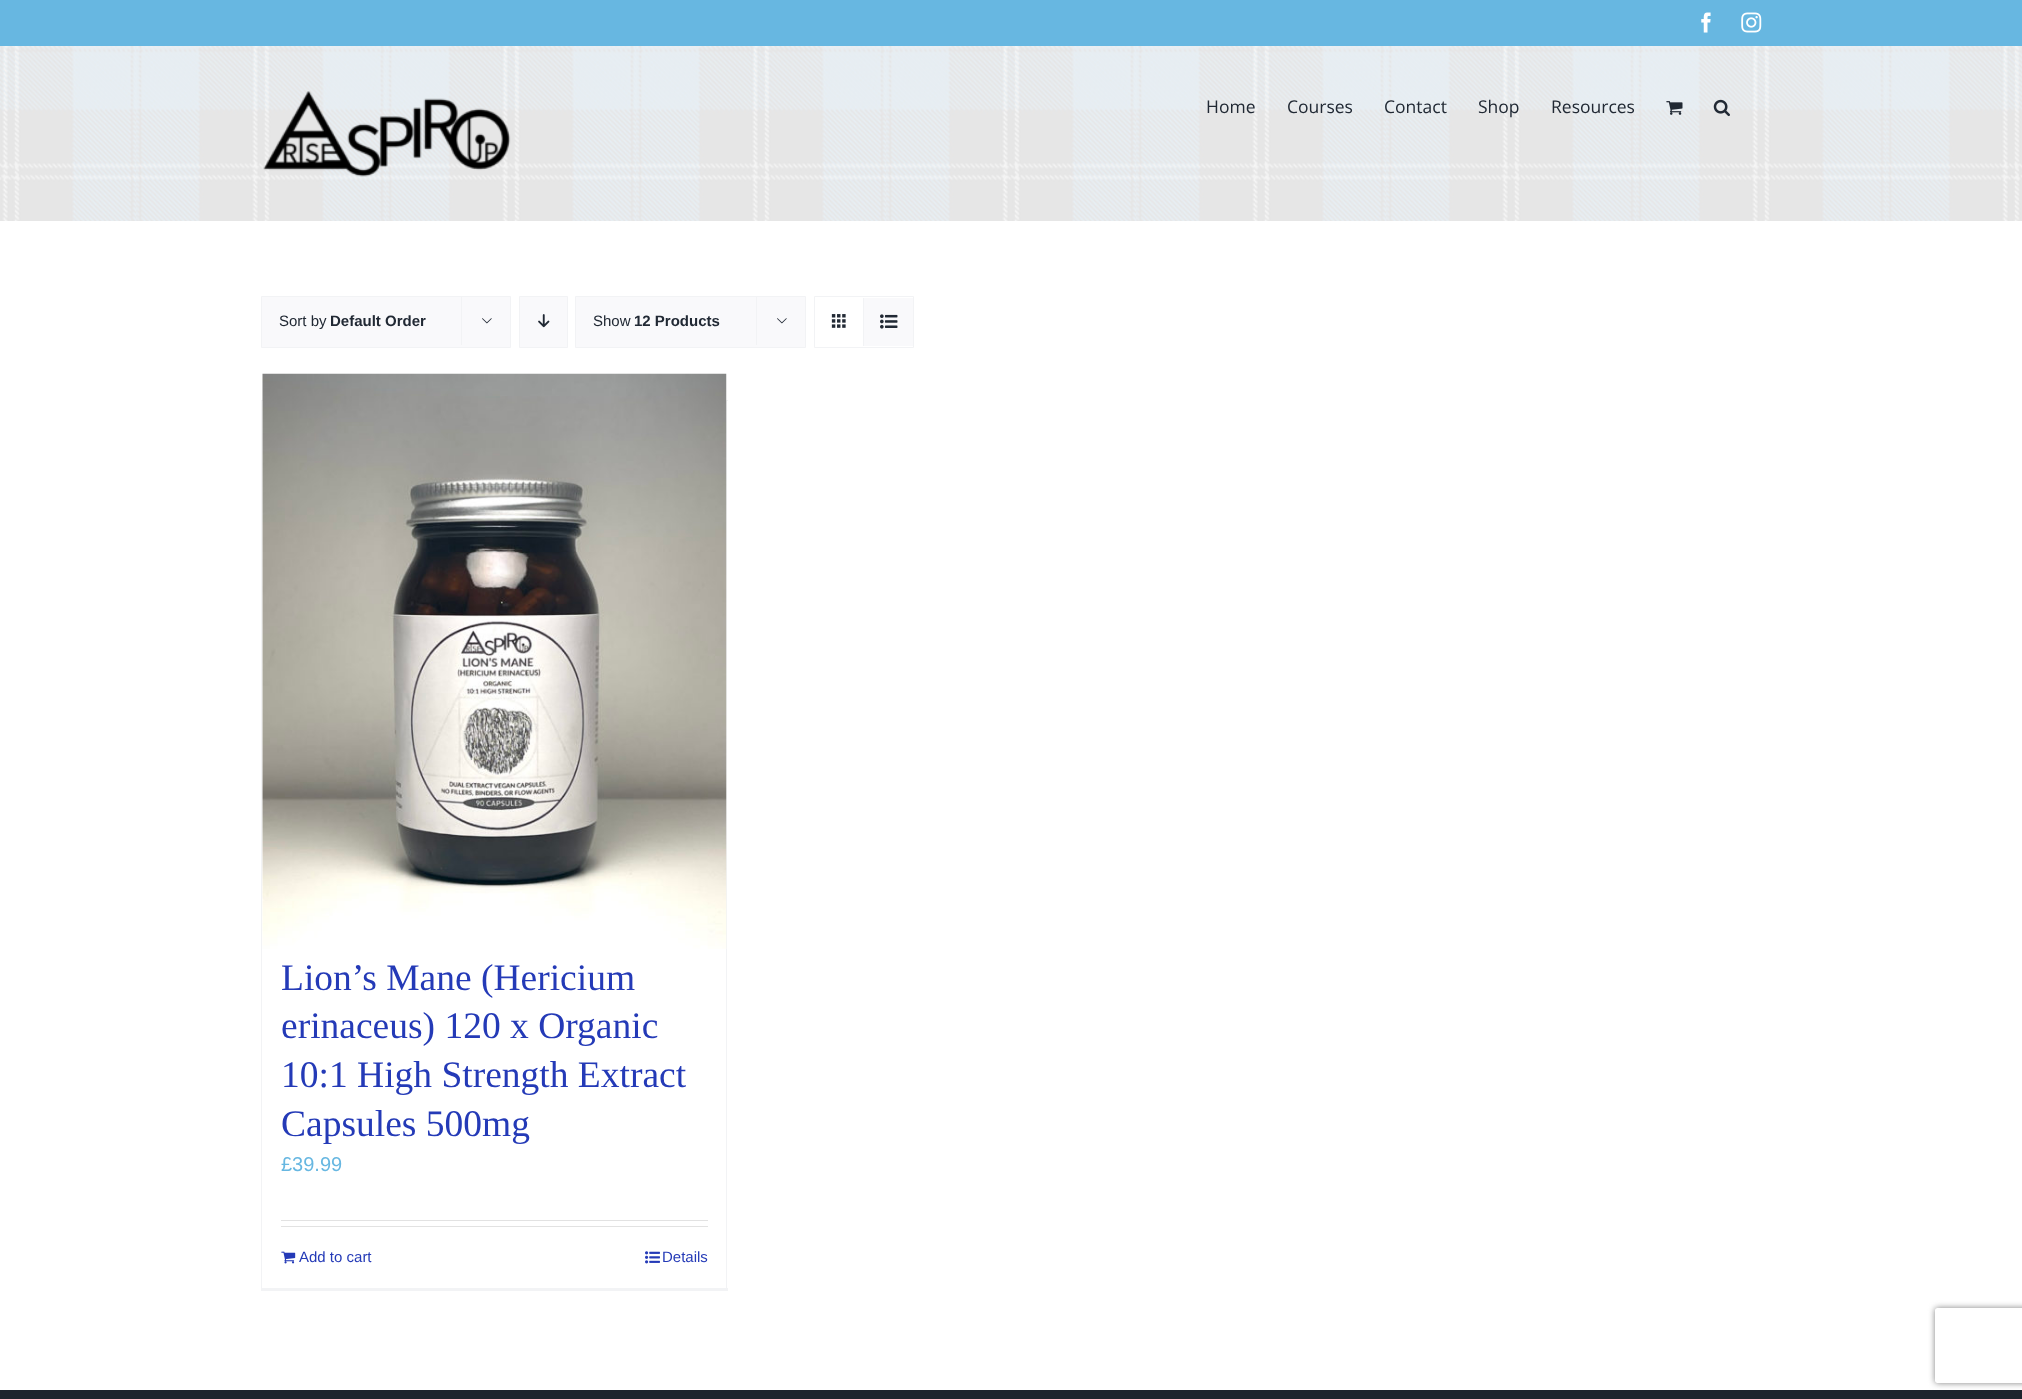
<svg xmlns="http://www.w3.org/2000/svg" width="2022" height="1399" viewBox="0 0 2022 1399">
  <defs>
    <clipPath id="clip1"><path d="M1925 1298H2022V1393H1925ZM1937.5 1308H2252.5C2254 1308 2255 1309 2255 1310.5V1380.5C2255 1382 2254 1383 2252.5 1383H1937.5C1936 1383 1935 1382 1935 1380.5V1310.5C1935 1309 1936 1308 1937.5 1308Z" clip-rule="evenodd"/></clipPath>
  </defs>
  <rect width="100%" height="100%" fill="#fff"/>
  <path d="M0 0h2022v46H0z" fill="#67b7e1"/>
  <image x="1701" y="12" width="10" height="21" href="img/1.png"/>
  <image x="1741" y="12" width="21" height="21" href="img/2.png"/>
  <image x="0" y="46" width="2022" height="175" href="img/3.png"/>
  <image x="263" y="91" width="248" height="86" href="img/4.png"/>
  <image x="1666" y="101" width="17" height="14" href="img/5.png"/>
  <image x="1713" y="99" width="17" height="18" href="img/6.png"/>
  <path d="M261.5 296.5h249v51H261.5z" fill="#f9f9fb" stroke="#f2f3f5"/>
  <path d="M461 296h1v49H461z" fill="#f2f3f5"/>
  <image x="482" y="318" width="10" height="6" href="img/7.png"/>
  <path d="M519.5 296.5h48v51H519.5z" fill="#f9f9fb" stroke="#f2f3f5"/>
  <image x="538" y="314" width="12" height="14" href="img/8.png"/>
  <path d="M575.5 296.5h230v51H575.5z" fill="#f9f9fb" stroke="#f2f3f5"/>
  <path d="M756 296h1v49H756z" fill="#f2f3f5"/>
  <image x="777" y="318" width="10" height="6" href="img/7.png"/>
  <path d="M814.5 296.5h99v51H814.5z" fill="none" stroke="#f2f3f5"/>
  <path d="M863 298h1v48H863z" fill="#f2f3f5"/>
  <image x="831" y="314" width="15" height="14" href="img/9.png"/>
  <path d="M864 298h49v48H864z" fill="#f9f9fb"/>
  <image x="880" y="314" width="18" height="15" href="img/10.png"/>
  <path d="M261 400h467v1H261z" fill="#f2f3f5"/>
  <path d="M726 400h1v890H726z" fill="#f2f3f5"/>
  <path d="M261 1288h467v3H261z" fill="#f2f3f5"/>
  <path d="M261 400h1v890H261z" fill="#f2f3f5"/>
  <image x="262" y="373" width="465" height="576" href="img/11.png"/>
  <path d="M281 1220h427v1H281z" fill="#e2e2e2"/>
  <path d="M281 1226h427v1H281z" fill="#e2e2e2"/>
  <image x="281" y="1251" width="15" height="13" href="img/12.png"/>
  <image x="645" y="1251" width="15" height="13" href="img/13.png"/>
  <g clip-path="url(#clip1)">
    <rect x="1935" y="1308" width="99" height="75" rx="2.5" fill="#808080" filter="blur(3px)"/>
  </g>
  <path d="M0 1390h2022v9H0z" fill="#1d242d"/>
  <g font-family="Open Sans" font-size="17.5" fill="#212934">
    <text x="1206" y="113">Home</text>
    <text x="1287" y="113">Courses</text>
    <text x="1384" y="113">Contact</text>
    <text x="1478" y="113">Shop</text>
    <text x="1551" y="113">Resources</text>
  </g>
  <text x="279" y="326" font-family="Liberation Sans" font-size="15" fill="#212934">Sort by</text>
  <text x="330" y="326" font-family="Liberation Sans" font-size="15" font-weight="bold" fill="#212934">Default Order</text>
  <text x="593" y="326" font-family="Liberation Sans" font-size="15" fill="#212934">Show</text>
  <text x="634" y="326" font-family="Liberation Sans" font-size="15" font-weight="bold" fill="#212934">12 Products</text>
  <g font-family="Liberation Serif" font-size="37.5" fill="#243ab7">
    <text x="281" y="990">Lion’s Mane (Hericium</text>
    <text x="281" y="1038">erinaceus) 120 x Organic</text>
    <text x="281" y="1087">10:1 High Strength Extract</text>
    <text x="281" y="1136">Capsules 500mg</text>
  </g>
  <text x="281" y="1171" font-family="Liberation Sans" font-size="20" fill="#67b7e1">£39.99</text>
  <g font-family="Liberation Sans" font-size="15" fill="#243ab7">
    <text x="299" y="1262">Add to cart</text>
    <text x="662" y="1262">Details</text>
  </g>
</svg>
